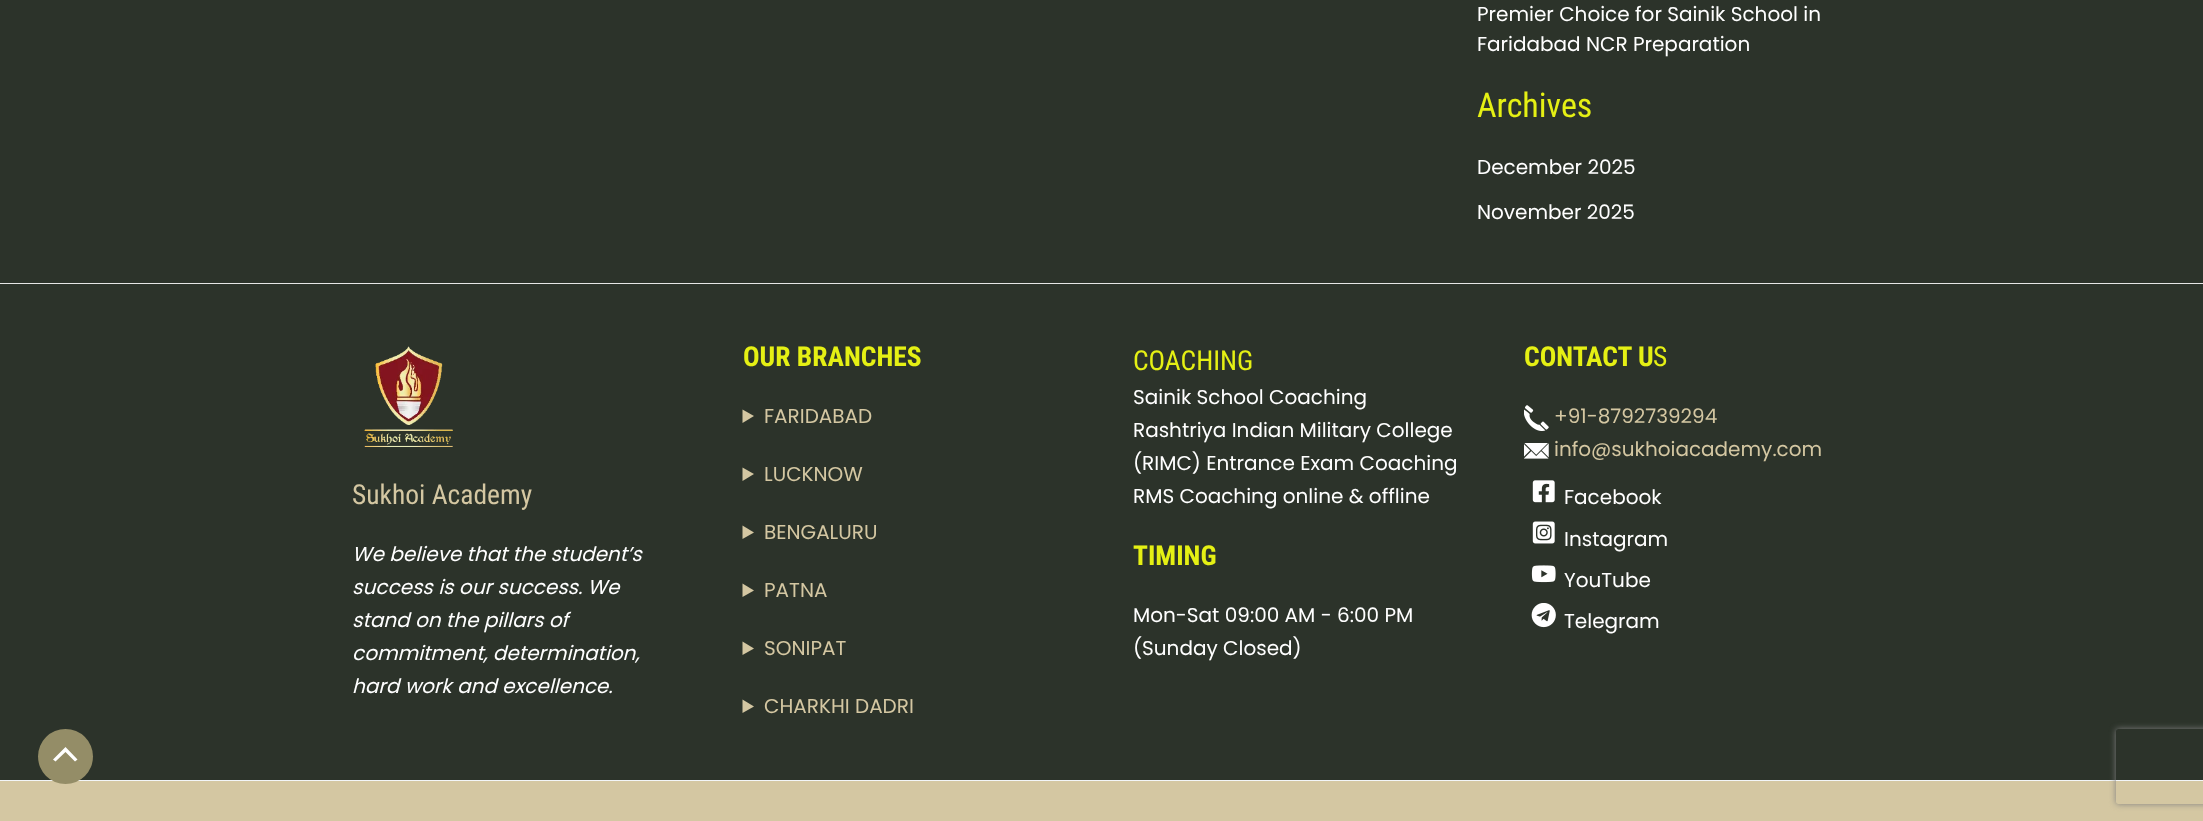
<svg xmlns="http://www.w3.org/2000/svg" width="2203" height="821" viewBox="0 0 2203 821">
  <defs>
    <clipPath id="clip1"><path d="M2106 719H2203V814H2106ZM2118.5 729H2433.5C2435 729 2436 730 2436 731.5V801.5C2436 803 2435 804 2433.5 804H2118.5C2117 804 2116 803 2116 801.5V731.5C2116 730 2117 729 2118.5 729Z" clip-rule="evenodd"/></clipPath>
  </defs>
  <rect width="100%" height="100%" fill="#2c332a"/>
  <path d="M0 283h2203v1H0z" fill="#e6e6e6"/>
  <image x="364" y="346" width="89" height="101" href="img/1.png"/>
  <path d="M742.5 409.5L754 416L742.5 423Z" fill="#d4c7a2"/>
  <path d="M742.5 467.5L754 474L742.5 481Z" fill="#d4c7a2"/>
  <path d="M742.5 525.5L754 532.5L742.5 539Z" fill="#d4c7a2"/>
  <path d="M742.5 583.5L754 590.5L742.5 597Z" fill="#d4c7a2"/>
  <path d="M742.5 641.5L754 648.5L742.5 655Z" fill="#d4c7a2"/>
  <path d="M742.5 699.5L754 706.5L742.5 713Z" fill="#d4c7a2"/>
  <image x="1524" y="405" width="25" height="26" href="img/2.png"/>
  <image x="1524" y="443" width="25" height="16" href="img/3.png"/>
  <image x="1532" y="480" width="23" height="23" href="img/4.png"/>
  <image x="1532" y="521" width="23" height="23" href="img/5.png"/>
  <image x="1531" y="565" width="25" height="18" href="img/6.png"/>
  <image x="1531" y="603" width="25" height="25" href="img/7.png"/>
  <path d="M0 781h2203v40H0z" fill="#d4c7a2"/>
  <path d="M0 780h2203v1H0z" fill="#f2f5f7"/>
  <circle cx="65.5" cy="756.5" r="27.5" fill="#948d67"/>
  <path d="M77.5 759.5L65.5 747L53 759.5L55.5 761.5L65.5 752L75 761.5Z" fill="#fff"/>
  <g clip-path="url(#clip1)">
    <rect x="2116" y="729" width="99" height="75" rx="2.5" fill="#808080" filter="blur(3px)"/>
  </g>
  <g font-family="Poppins" font-size="20" fill="#fff">
    <text x="1477" y="21">Premier Choice for Sainik School in</text>
    <text x="1477" y="51">Faridabad NCR Preparation</text>
  </g>
  <text x="1477" y="117" font-family="Roboto Condensed" font-size="34" fill="#e5f014">Archives</text>
  <g font-family="Poppins" font-size="20" fill="#fff">
    <text x="1477" y="174">December 2025</text>
    <text x="1477" y="219">November 2025</text>
  </g>
  <text x="352" y="504" font-family="Roboto Condensed" font-size="27.5" fill="#d4c7a2">Sukhoi Academy</text>
  <g font-family="Poppins" font-size="20" font-style="italic" fill="#fff">
    <text x="352" y="561">We believe that the student’s</text>
    <text x="352" y="594">success is our success. We</text>
    <text x="352" y="627">stand on the pillars of</text>
    <text x="352" y="660">commitment, determination,</text>
    <text x="352" y="693">hard work and excellence.</text>
  </g>
  <text x="743" y="366" font-family="Roboto Condensed" font-size="27.5" font-weight="bold" fill="#e5f014">OUR BRANCHES</text>
  <g font-family="Poppins" font-size="20" fill="#d4c7a2">
    <text x="764" y="423">FARIDABAD</text>
    <text x="764" y="481">LUCKNOW</text>
    <text x="764" y="539">BENGALURU</text>
    <text x="764" y="597">PATNA</text>
    <text x="764" y="655">SONIPAT</text>
    <text x="764" y="713">CHARKHI DADRI</text>
  </g>
  <text x="1133" y="370" font-family="Roboto Condensed" font-size="27.5" fill="#e5f014">COACHING</text>
  <g font-family="Poppins" font-size="20" fill="#fff">
    <text x="1133" y="404">Sainik School Coaching</text>
    <text x="1133" y="437">Rashtriya Indian Military College</text>
    <text x="1133" y="470">(RIMC) Entrance Exam Coaching</text>
    <text x="1133" y="503">RMS Coaching online &amp; offline</text>
  </g>
  <text x="1133" y="565" font-family="Roboto Condensed" font-size="27.5" font-weight="bold" fill="#e5f014">TIMING</text>
  <g font-family="Poppins" font-size="20" fill="#fff">
    <text x="1133" y="622">Mon-Sat 09:00 AM - 6:00 PM</text>
    <text x="1133" y="655">(Sunday Closed)</text>
  </g>
  <text x="1524" y="366" font-family="Roboto Condensed" font-size="27.5" font-weight="bold" fill="#e5f014">CONTACT U</text>
  <text x="1653" y="366" font-family="Roboto Condensed" font-size="27.5" fill="#e5f014">S</text>
  <g font-family="Poppins" font-size="20" fill="#d4c7a2">
    <text x="1554" y="423">+91-8792739294</text>
    <text x="1554" y="456">info@sukhoiacademy.com</text>
  </g>
  <g font-family="Poppins" font-size="20" fill="#fff">
    <text x="1564" y="504">Facebook</text>
    <text x="1564" y="546">Instagram</text>
    <text x="1564" y="587">YouTube</text>
    <text x="1564" y="628">Telegram</text>
  </g>
</svg>
